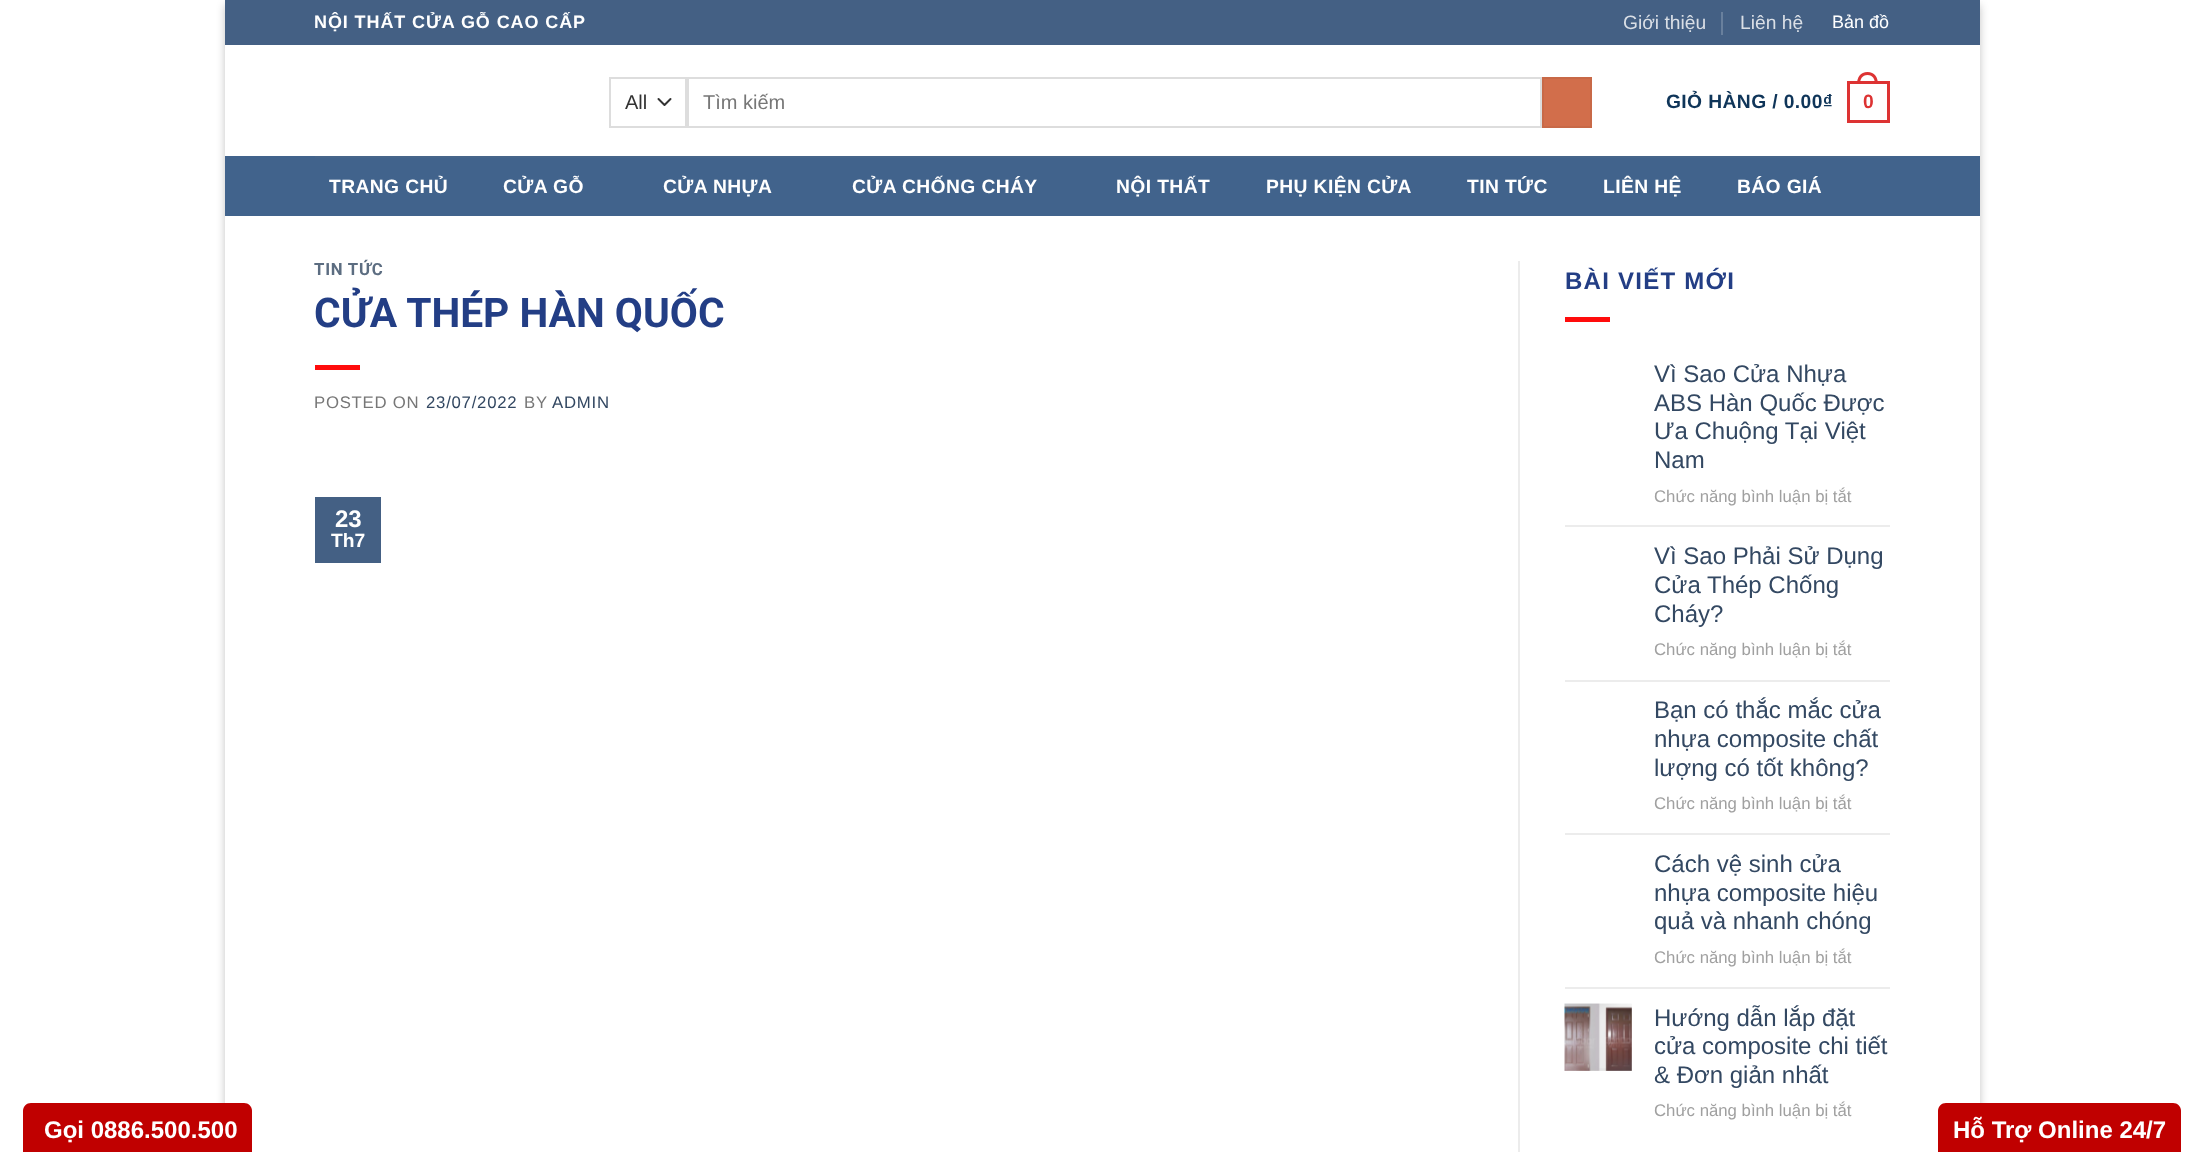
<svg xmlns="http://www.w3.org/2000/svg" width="2203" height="1152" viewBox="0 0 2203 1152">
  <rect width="100%" height="100%" fill="#fff"/>
  <path d="M225 5h1755v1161H225z" fill="#0000003b" filter="blur(4.5px)"/>
  <path d="M225 0h1755v45H225z" fill="#446084"/>
  <path d="M1721 12h2v23H1721z" fill="#69809d"/>
  <path d="M225 45h1755v111H225z" fill="#fff"/>
  <path d="M658.5 99L664.5 105L670.5 99" fill="none" stroke="#333" stroke-width="2" stroke-linecap="round" stroke-linejoin="round"/>
  <path d="M610 78h76v49H610z" fill="none" stroke="#ddd" stroke-width="2"/>
  <path d="M688 78h853v49H688z" fill="none" stroke="#ddd" stroke-width="2"/>
  <path d="M1543 78h48v49H1543z" fill="#d26e4b" stroke="#c86947" stroke-width="2"/>
  <path d="M1848.5 82.5h40v39H1848.5z" fill="none" stroke="#d33" stroke-width="3"/>
  <path d="M1867.5 72C1874.5 72 1878 77.5 1878 84H1857C1857 77.5 1860.5 72 1867.5 72ZM1867.5 75C1873 75 1875 79.5 1875 84H1860C1860 79.5 1862 75 1867.5 75Z" fill="#d33" fill-rule="evenodd"/>
  <path d="M225 156h1755v60H225z" fill="#41638c"/>
  <path d="M315 156h1575v2H315z" fill="#46658a"/>
  <path d="M225 216h1755v936H225z" fill="#fff"/>
  <path d="M315 365h45v5H315z" fill="#ff0c0c"/>
  <path d="M315 497h66v66H315z" fill="#446084"/>
  <path d="M1518 261h2v891H1518z" fill="#ececec"/>
  <path d="M1565 317h45v5H1565z" fill="#ff0c0c"/>
  <path d="M1565 525h325v2H1565z" fill="#ececec"/>
  <path d="M1565 680h325v2H1565z" fill="#ececec"/>
  <path d="M1565 833h325v2H1565z" fill="#ececec"/>
  <path d="M1565 987h325v2H1565z" fill="#ececec"/>
  <image x="1564" y="1003" width="68" height="68" href="img/1.png"/>
  <path d="M31 1103H244C248.5 1103 252 1106.5 252 1111V1152H23V1111C23 1106.5 26.5 1103 31 1103Z" fill="#c00000"/>
  <path d="M1946 1103H2173C2177.5 1103 2181 1106.5 2181 1111V1152H1938V1111C1938 1106.5 1941.5 1103 1946 1103Z" fill="#c00000"/>
  <text x="314" y="28" font-family="Liberation Sans" font-size="18" font-weight="bold" letter-spacing="0.9" fill="#fff">NỘI THẤT CỬA GỖ CAO CẤP</text>
  <g font-family="Liberation Sans" font-size="19.25" fill="#dadfe6">
    <text x="1623" y="29">Giới thiệu</text>
    <text x="1740" y="29">Liên hệ</text>
  </g>
  <text x="1832" y="28" font-family="Liberation Sans" font-size="18" fill="#fff">Bản đồ</text>
  <text x="625" y="109" font-family="Liberation Sans" font-size="20" fill="#333">All</text>
  <text x="703" y="109" font-family="Liberation Sans" font-size="20" fill="#777">Tìm kiếm</text>
  <text x="1666" y="108" font-family="Liberation Sans" font-size="19.25" font-weight="bold" letter-spacing="0.4" fill="#0f3559">GIỎ HÀNG / 0.00₫</text>
  <text x="1863" y="108" font-family="Liberation Sans" font-size="19.25" font-weight="bold" letter-spacing="0.4" fill="#d33">0</text>
  <g font-family="Liberation Sans" font-size="19.25" font-weight="bold" letter-spacing="0.4" fill="#fff">
    <text x="329" y="193">TRANG CHỦ</text>
    <text x="503" y="193">CỬA GỖ</text>
    <text x="663" y="193">CỬA NHỰA</text>
    <text x="852" y="193">CỬA CHỐNG CHÁY</text>
    <text x="1116" y="193">NỘI THẤT</text>
    <text x="1266" y="193">PHỤ KIỆN CỬA</text>
    <text x="1467" y="193">TIN TỨC</text>
    <text x="1603" y="193">LIÊN HỆ</text>
    <text x="1737" y="193">BÁO GIÁ</text>
  </g>
  <text x="314" y="275" font-family="Roboto" font-size="16.75" font-weight="bold" letter-spacing="0.75" fill="#5c6d81">TIN TỨC</text>
  <text x="314" y="327" font-family="Roboto" font-size="40.75" font-weight="bold" fill="#233e85">CỬA THÉP HÀN QUỐC</text>
  <text x="314" y="408" font-family="Liberation Sans" font-size="16.75" letter-spacing="0.75" fill="#777">POSTED ON</text>
  <text x="426" y="408" font-family="Liberation Sans" font-size="16.75" letter-spacing="0.75" fill="#334862">23/07/2022</text>
  <text x="524" y="408" font-family="Liberation Sans" font-size="16.75" letter-spacing="0.75" fill="#777">BY</text>
  <text x="552" y="408" font-family="Liberation Sans" font-size="16.75" letter-spacing="0.75" fill="#334862">ADMIN</text>
  <text x="335" y="527" font-family="Liberation Sans" font-size="24" font-weight="bold" fill="#fff">23</text>
  <text x="331" y="547" font-family="Liberation Sans" font-size="19.25" font-weight="bold" fill="#fff">Th7</text>
  <text x="1565" y="289" font-family="Liberation Sans" font-size="24" font-weight="bold" letter-spacing="1.25" fill="#233e85">BÀI VIẾT MỚI</text>
  <g font-family="Liberation Sans" font-size="24" fill="#334862">
    <text x="1654" y="382">Vì Sao Cửa Nhựa</text>
    <text x="1654" y="411">ABS Hàn Quốc Được</text>
    <text x="1654" y="439">Ưa Chuộng Tại Việt</text>
    <text x="1654" y="468">Nam</text>
  </g>
  <text x="1654" y="502" font-family="Liberation Sans" font-size="16.75" fill="#a0a0a0">Chức năng bình luận bị tắt</text>
  <g font-family="Liberation Sans" font-size="24" fill="#334862">
    <text x="1654" y="564">Vì Sao Phải Sử Dụng</text>
    <text x="1654" y="593">Cửa Thép Chống</text>
    <text x="1654" y="622">Cháy?</text>
  </g>
  <text x="1654" y="655" font-family="Liberation Sans" font-size="16.75" fill="#a0a0a0">Chức năng bình luận bị tắt</text>
  <g font-family="Liberation Sans" font-size="24" fill="#334862">
    <text x="1654" y="718">Bạn có thắc mắc cửa</text>
    <text x="1654" y="747">nhựa composite chất</text>
    <text x="1654" y="776">lượng có tốt không?</text>
  </g>
  <text x="1654" y="809" font-family="Liberation Sans" font-size="16.75" fill="#a0a0a0">Chức năng bình luận bị tắt</text>
  <g font-family="Liberation Sans" font-size="24" fill="#334862">
    <text x="1654" y="872">Cách vệ sinh cửa</text>
    <text x="1654" y="901">nhựa composite hiệu</text>
    <text x="1654" y="929">quả và nhanh chóng</text>
  </g>
  <text x="1654" y="963" font-family="Liberation Sans" font-size="16.75" fill="#a0a0a0">Chức năng bình luận bị tắt</text>
  <g font-family="Liberation Sans" font-size="24" fill="#334862">
    <text x="1654" y="1026">Hướng dẫn lắp đặt</text>
    <text x="1654" y="1054">cửa composite chi tiết</text>
    <text x="1654" y="1083">&amp; Đơn giản nhất</text>
  </g>
  <text x="1654" y="1116" font-family="Liberation Sans" font-size="16.75" fill="#a0a0a0">Chức năng bình luận bị tắt</text>
  <g font-family="Liberation Sans" font-size="24" font-weight="bold" fill="#fff">
    <text x="44" y="1138">Gọi 0886.500.500</text>
    <text x="1953" y="1138">Hỗ Trợ Online 24/7</text>
  </g>
</svg>
